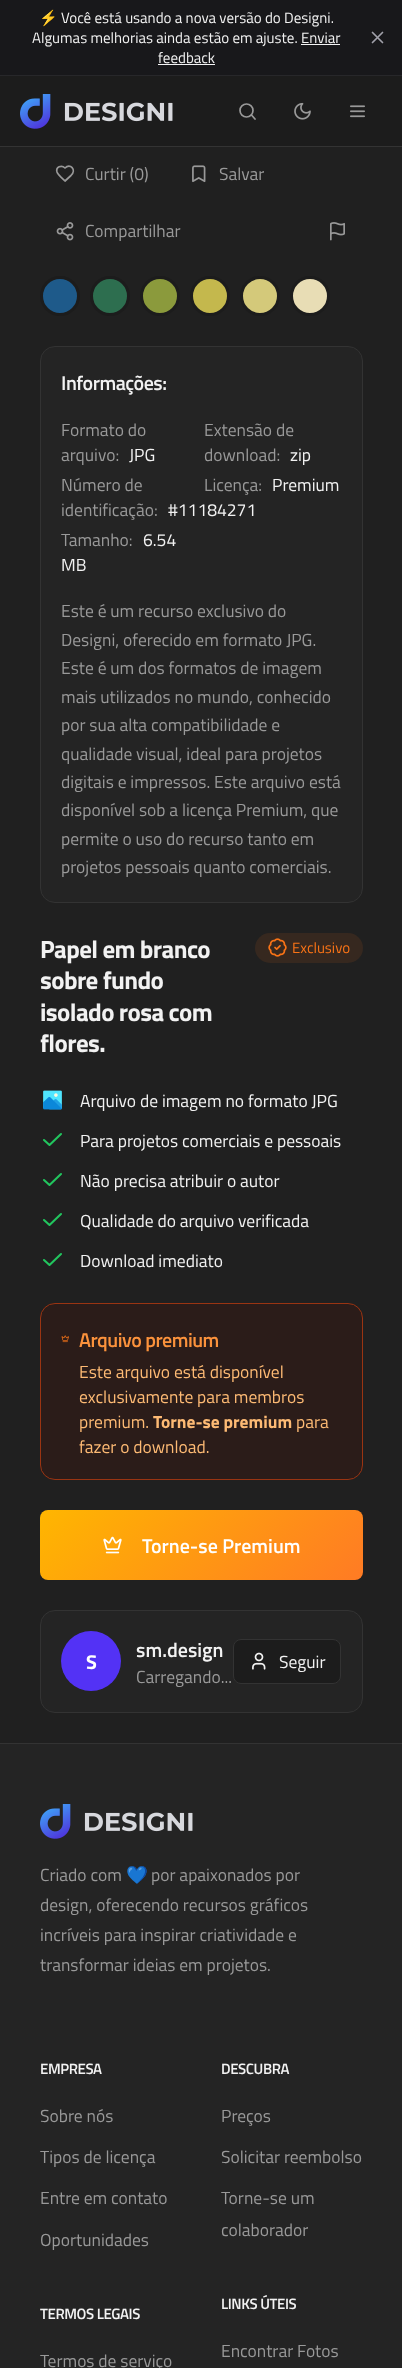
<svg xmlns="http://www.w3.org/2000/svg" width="402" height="2368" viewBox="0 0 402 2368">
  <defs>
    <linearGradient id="g1" gradientUnits="userSpaceOnUse" x1="103" y1="1447" x2="299" y2="1643"><stop offset="0" stop-color="#ffb600"/><stop offset="1" stop-color="#ff7b24"/></linearGradient>
  </defs>
  <rect width="100%" height="100%" fill="#202020"/>
  <path d="M0 76h402v70H0z" fill="#1c1c1c"/>
  <path d="M0 146h402v1H0z" fill="#333"/>
  <path d="M0 0h402v75H0z" fill="#18181b"/>
  <path d="M0 75h402v1H0z" fill="#27272a"/>
  <path d="M158 64h57v1H158z" fill="#f4f4f5"/>
  <path d="M382.5 32.5L372.5 42.5M372.5 32.5L382.5 42.5" fill="none" stroke="#a1a1aa" stroke-width="1.7" stroke-linecap="round" stroke-linejoin="round"/>
  <image x="20" y="94" width="153" height="35" href="img/1.png"/>
  <circle cx="246.5" cy="110.5" r="6.5" fill="none" stroke="#999" stroke-width="1.7"/>
  <path d="M255 119L251.5 115" fill="none" stroke="#999" stroke-width="1.7" stroke-linecap="round" stroke-linejoin="round"/>
  <image x="294" y="102" width="17" height="18" href="img/2.png"/>
  <image x="350" y="105" width="15" height="13" href="img/3.png"/>
  <path d="M71 175.5C77 169.5 70 163 65 168C61.5 164.5 55.5 167 57 172C58 175 63 179 65 181Z" fill="none" stroke="#999" stroke-width="1.7" stroke-linecap="round" stroke-linejoin="round"/>
  <image x="192" y="165" width="14" height="18" href="img/4.png"/>
  <image x="56" y="222" width="18" height="19" href="img/5.png"/>
  <image x="330" y="222" width="15" height="19" href="img/6.png"/>
  <circle cx="60" cy="296" r="18.5" fill="#1e5a8a" stroke="#1c1c1c" stroke-width="3"/>
  <circle cx="110" cy="296" r="18.5" fill="#2d6e4f" stroke="#1c1c1c" stroke-width="3"/>
  <circle cx="160" cy="296" r="18.5" fill="#8b9a3c" stroke="#1c1c1c" stroke-width="3"/>
  <circle cx="210" cy="296" r="18.5" fill="#c4b84d" stroke="#1c1c1c" stroke-width="3"/>
  <circle cx="260" cy="296" r="18.5" fill="#d4c97a" stroke="#1c1c1c" stroke-width="3"/>
  <circle cx="310" cy="296" r="18.5" fill="#e8ddb5" stroke="#1c1c1c" stroke-width="3"/>
  <rect x="40.5" y="346.5" width="322" height="556" rx="14.5" fill="#242424" stroke="#333"/>
  <rect x="255" y="933" width="108" height="30" rx="15" fill="#36281f"/>
  <image x="268" y="938" width="19" height="19" href="img/7.png"/>
  <image x="43" y="1090" width="19" height="20" href="img/8.png"/>
  <path d="M61 1134L49.5 1145L44 1140M61 1174L49.5 1185L44 1180" fill="none" stroke="#22c55e" stroke-width="2.1" stroke-linecap="round" stroke-linejoin="round"/>
  <path d="M61 1214L49.5 1225L44 1220M61 1254L49.5 1265L44 1260" fill="none" stroke="#22c55e" stroke-width="2.1" stroke-linecap="round" stroke-linejoin="round"/>
  <rect x="40.5" y="1303.5" width="322" height="176" rx="14.5" fill="#2b1c19" stroke="#9a3412"/>
  <image x="61" y="1335" width="8" height="8" href="img/9.png"/>
  <rect x="40" y="1510" width="323" height="70" rx="8" fill="url(#g1)"/>
  <image x="103" y="1536" width="19" height="18" href="img/10.png"/>
  <rect x="40.5" y="1610.5" width="322" height="102" rx="14.5" fill="#242424" stroke="#333"/>
  <circle cx="91" cy="1661" r="30" fill="#5332f5"/>
  <rect x="233.5" y="1639.5" width="107" height="44" rx="7.5" fill="#1c1c1c" stroke="#333"/>
  <image x="252" y="1652" width="14" height="18" href="img/11.png"/>
  <path d="M0 1744h402v624H0z" fill="#242424"/>
  <path d="M0 1743h402v1H0z" fill="#333"/>
  <image x="40" y="1804" width="153" height="35" href="img/12.png"/>
  <text x="39" y="23" font-family="Noto Color Emoji" font-size="15" fill="#f2f2f2">⚡</text>
  <g font-family="Titillium Web" font-size="15" fill="#f2f2f2">
    <text x="61" y="23">Você está usando a nova versão do Designi.</text>
    <text x="32" y="43">Algumas melhorias ainda estão em ajuste. Enviar</text>
    <text x="158" y="63">feedback</text>
  </g>
  <path d="M301 44h39v1H301z" fill="#f4f4f5"/>
  <g font-family="Titillium Web" font-size="17.5" fill="#999">
    <text x="85" y="180">Curtir (0)</text>
    <text x="219" y="180">Salvar</text>
    <text x="85" y="237">Compartilhar</text>
  </g>
  <text x="61" y="390" font-family="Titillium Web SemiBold" font-size="20" font-weight="600" letter-spacing="-0.5" fill="#f2f2f2">Informações:</text>
  <g font-family="Titillium Web" font-size="17.5" fill="#999">
    <text x="61" y="436">Formato do</text>
    <text x="61" y="461">arquivo:</text>
  </g>
  <text x="129" y="461" font-family="Titillium Web" font-size="17.5" fill="#f2f2f2">JPG</text>
  <g font-family="Titillium Web" font-size="17.5" fill="#999">
    <text x="204" y="436">Extensão de</text>
    <text x="204" y="461">download:</text>
  </g>
  <text x="290" y="461" font-family="Titillium Web" font-size="17.5" fill="#f2f2f2">zip</text>
  <g font-family="Titillium Web" font-size="17.5" fill="#999">
    <text x="61" y="491">Número de</text>
    <text x="61" y="516">identificação:</text>
  </g>
  <text x="168" y="516" font-family="Titillium Web" font-size="17.5" fill="#f2f2f2">#11184271</text>
  <text x="204" y="491" font-family="Titillium Web" font-size="17.5" fill="#999">Licença:</text>
  <text x="272" y="491" font-family="Titillium Web" font-size="17.5" fill="#f2f2f2">Premium</text>
  <text x="61" y="546" font-family="Titillium Web" font-size="17.5" fill="#999">Tamanho:</text>
  <g font-family="Titillium Web" font-size="17.5" fill="#f2f2f2">
    <text x="143" y="546">6.54</text>
    <text x="61" y="571">MB</text>
  </g>
  <g font-family="Titillium Web" font-size="17.5" fill="#999">
    <text x="61" y="617">Este é um recurso exclusivo do</text>
    <text x="61" y="646">Designi, oferecido em formato JPG.</text>
    <text x="61" y="674">Este é um dos formatos de imagem</text>
    <text x="61" y="703">mais utilizados no mundo, conhecido</text>
    <text x="61" y="731">por sua alta compatibilidade e</text>
    <text x="61" y="760">qualidade visual, ideal para projetos</text>
    <text x="61" y="788">digitais e impressos. Este arquivo está</text>
    <text x="61" y="816">disponível sob a licença Premium, que</text>
    <text x="61" y="845">permite o uso do recurso tanto em</text>
    <text x="61" y="873">projetos pessoais quanto comerciais.</text>
  </g>
  <g font-family="Titillium Web" font-size="25" font-weight="bold" letter-spacing="-0.6" fill="#f2f2f2">
    <text x="40" y="958">Papel em branco</text>
    <text x="40" y="989">sobre fundo</text>
    <text x="40" y="1021">isolado rosa com</text>
    <text x="40" y="1052">flores.</text>
  </g>
  <text x="292" y="953" font-family="Titillium Web" font-size="15" fill="#f97316">Exclusivo</text>
  <g font-family="Titillium Web" font-size="17.5" fill="#f2f2f2">
    <text x="80" y="1107">Arquivo de imagem no formato JPG</text>
    <text x="80" y="1147">Para projetos comerciais e pessoais</text>
    <text x="80" y="1187">Não precisa atribuir o autor</text>
    <text x="80" y="1227">Qualidade do arquivo verificada</text>
    <text x="80" y="1267">Download imediato</text>
  </g>
  <text x="79" y="1347" font-family="Titillium Web SemiBold" font-size="20" font-weight="600" letter-spacing="-0.5" fill="#fb923c">Arquivo premium</text>
  <g font-family="Titillium Web" font-size="17.5" fill="#fdba74">
    <text x="79" y="1378">Este arquivo está disponível</text>
    <text x="79" y="1403">exclusivamente para membros</text>
    <text x="79" y="1428">premium.</text>
  </g>
  <text x="153" y="1428" font-family="Titillium Web" font-size="17.5" font-weight="bold" fill="#fdba74">Torne-se premium</text>
  <g font-family="Titillium Web" font-size="17.5" fill="#fdba74">
    <text x="296" y="1428">para</text>
    <text x="79" y="1453">fazer o download.</text>
  </g>
  <text x="142" y="1553" font-family="Titillium Web SemiBold" font-size="20" font-weight="600" fill="#fff">Torne-se Premium</text>
  <text x="86" y="1669" font-family="Titillium Web" font-size="20" font-weight="bold" fill="#fff">S</text>
  <text x="136" y="1657" font-family="Titillium Web SemiBold" font-size="20" font-weight="600" fill="#f2f2f2">sm.design</text>
  <text x="136" y="1683" font-family="Titillium Web" font-size="17.5" fill="#999">Carregando...</text>
  <text x="279" y="1668" font-family="Titillium Web" font-size="17.5" fill="#f2f2f2">Seguir</text>
  <text x="40" y="1881" font-family="Titillium Web" font-size="17.5" fill="#999">Criado com</text>
  <text x="126" y="1881" font-family="Noto Color Emoji" font-size="17.5" fill="#999">💙</text>
  <g font-family="Titillium Web" font-size="17.5" fill="#999">
    <text x="151" y="1881">por apaixonados por</text>
    <text x="40" y="1911">design, oferecendo recursos gráficos</text>
    <text x="40" y="1941">incríveis para inspirar criatividade e</text>
    <text x="40" y="1971">transformar ideias em projetos.</text>
  </g>
  <text x="40" y="2074" font-family="Titillium Web SemiBold" font-size="15" font-weight="600" letter-spacing="-0.4" fill="#f2f2f2">EMPRESA</text>
  <g font-family="Titillium Web" font-size="17.5" fill="#999">
    <text x="40" y="2122">Sobre nós</text>
    <text x="40" y="2163">Tipos de licença</text>
    <text x="40" y="2204">Entre em contato</text>
    <text x="40" y="2246">Oportunidades</text>
  </g>
  <text x="40" y="2319" font-family="Titillium Web SemiBold" font-size="15" font-weight="600" letter-spacing="-0.4" fill="#f2f2f2">TERMOS LEGAIS</text>
  <text x="40" y="2367" font-family="Titillium Web" font-size="17.5" fill="#999">Termos de serviço</text>
  <text x="221" y="2074" font-family="Titillium Web SemiBold" font-size="15" font-weight="600" letter-spacing="-0.4" fill="#f2f2f2">DESCUBRA</text>
  <g font-family="Titillium Web" font-size="17.5" fill="#999">
    <text x="221" y="2122">Preços</text>
    <text x="221" y="2163">Solicitar reembolso</text>
    <text x="221" y="2204">Torne-se um</text>
    <text x="221" y="2236">colaborador</text>
  </g>
  <text x="221" y="2309" font-family="Titillium Web SemiBold" font-size="15" font-weight="600" letter-spacing="-0.4" fill="#f2f2f2">LINKS ÚTEIS</text>
  <text x="221" y="2357" font-family="Titillium Web" font-size="17.5" fill="#999">Encontrar Fotos</text>
</svg>
